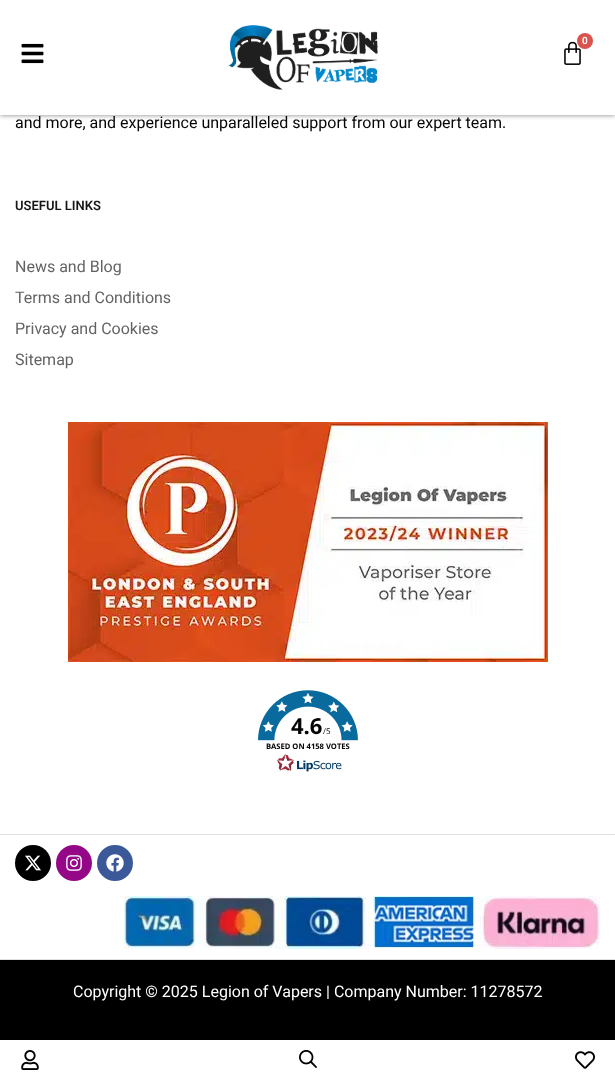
<svg xmlns="http://www.w3.org/2000/svg" width="615" height="1090" viewBox="0 0 615 1090">
  <rect width="100%" height="100%" fill="#fff"/>
  <path d="M0 0h615v115H0z" fill="#00000080" filter="blur(2.5px)"/>
  <path d="M0 0h615v115H0z" fill="#fff"/>
  <image x="228" y="25" width="150" height="65" href="img/1.png"/>
  <image x="564" y="41" width="17" height="24" href="img/2.png"/>
  <circle cx="585" cy="41" r="8" fill="#d9534f"/>
  <image x="21" y="43" width="23" height="21" href="img/3.png"/>
  <image x="68" y="422" width="480" height="240" href="img/4.png"/>
  <image x="258" y="690" width="100" height="82" href="img/5.png"/>
  <path d="M0 834h615v1H0z" fill="#e0e0e0"/>
  <path d="M0 959h615v1H0z" fill="#e0e0e0"/>
  <circle cx="33" cy="863" r="18" fill="#000"/>
  <image x="25" y="855" width="16" height="16" href="img/6.png"/>
  <circle cx="74" cy="863" r="18" fill="#940888"/>
  <image x="66" y="855" width="16" height="16" href="img/7.png"/>
  <circle cx="115" cy="863" r="18" fill="#3b5998"/>
  <image x="106" y="854" width="18" height="18" href="img/8.png"/>
  <image x="123" y="896" width="477" height="53" href="img/9.png"/>
  <path d="M0 960h615v80H0z" fill="#000"/>
  <image x="21" y="1050" width="18" height="20" href="img/10.png"/>
  <image x="299" y="1050" width="18" height="18" href="img/11.png"/>
  <image x="575" y="1051" width="20" height="18" href="img/12.png"/>
  <text x="582" y="44" font-family="Roboto" font-size="10" font-weight="600" fill="#fff">0</text>
  <text x="15" y="128" font-family="Roboto" font-size="16" fill="#050505">and more, and experience unparalleled support from our expert team.</text>
  <text x="15" y="210" font-family="Roboto" font-size="13" font-weight="600" fill="#161616">USEFUL LINKS</text>
  <g font-family="Roboto" font-size="16" fill="#636363">
    <text x="15" y="272">News and Blog</text>
    <text x="15" y="303">Terms and Conditions</text>
    <text x="15" y="334">Privacy and Cookies</text>
    <text x="15" y="365">Sitemap</text>
  </g>
  <text x="291" y="734" font-family="Open Sans" font-size="22" font-weight="bold" fill="#050505">4.6</text>
  <text x="323" y="734" font-family="Open Sans" font-size="8" fill="#050505">/5</text>
  <text x="266" y="749" font-family="Open Sans" font-size="7.6" font-weight="bold" fill="#050505">BASED ON 4158 VOTES</text>
  <text x="73" y="997" font-family="Roboto" font-size="16" fill="#fff">Copyright © 2025 Legion of Vapers | Company Number: 11278572</text>
</svg>
